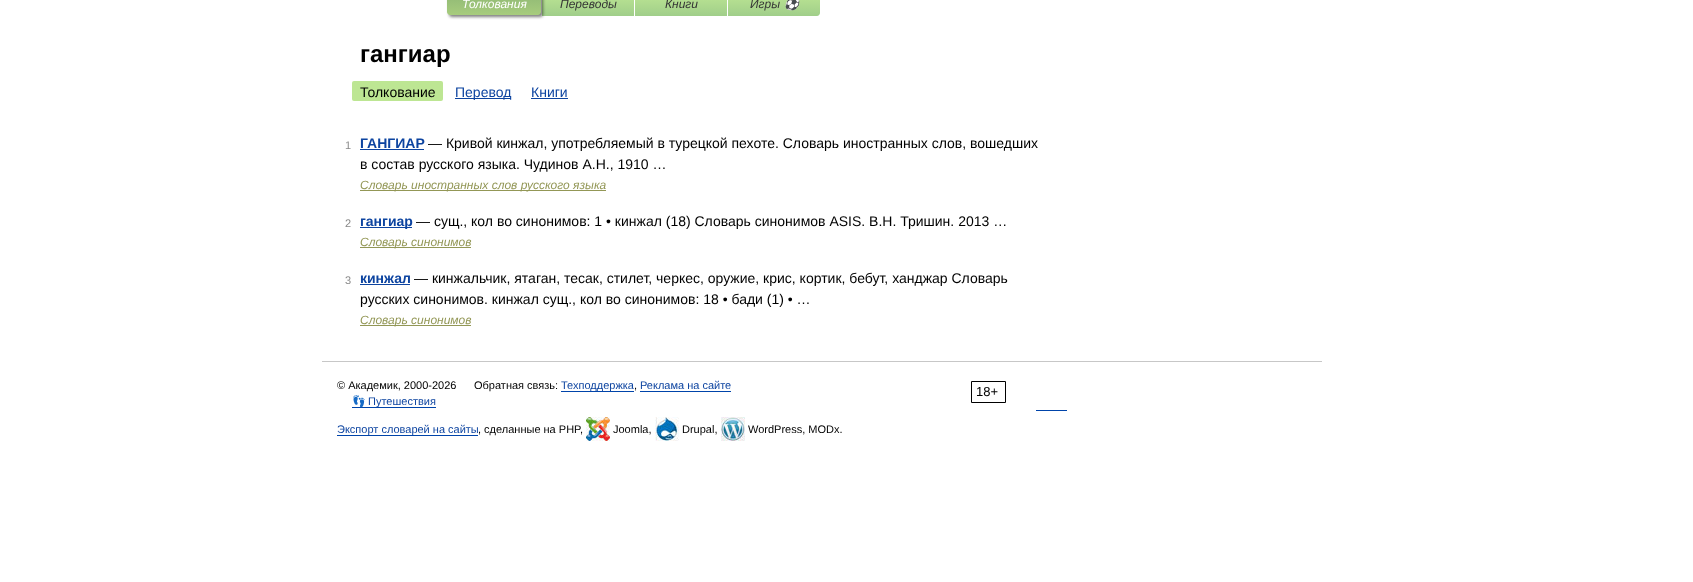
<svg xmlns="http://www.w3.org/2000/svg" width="1693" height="582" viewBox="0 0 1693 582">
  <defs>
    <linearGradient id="g1" gradientUnits="userSpaceOnUse" x1="588" y1="-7" x2="588" y2="16"><stop offset="0" stop-color="#bde693"/><stop offset="1" stop-color="#a0ce8a"/></linearGradient>
    <linearGradient id="g2" gradientUnits="userSpaceOnUse" x1="494" y1="-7" x2="494" y2="15"><stop offset="0" stop-color="#8fb875"/><stop offset="1" stop-color="#a7cc7d"/></linearGradient>
    <linearGradient id="g3" gradientUnits="userSpaceOnUse" x1="681" y1="-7" x2="681" y2="16"><stop offset="0" stop-color="#bde693"/><stop offset="1" stop-color="#a0ce8a"/></linearGradient>
    <linearGradient id="g4" gradientUnits="userSpaceOnUse" x1="774" y1="-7" x2="774" y2="16"><stop offset="0" stop-color="#bde693"/><stop offset="1" stop-color="#a0ce8a"/></linearGradient>
  </defs>
  <rect width="100%" height="100%" fill="#fff"/>
  <path d="M542 0h92v16H542z" fill="url(#g1)"/>
  <rect x="449" y="-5" width="94" height="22" rx="3" fill="#00000080" filter="blur(1.5px)"/>
  <path d="M447-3H541V12C541 13.5 539.5 15 538 15H450C448.5 15 447 13.5 447 12Z" fill="url(#g2)"/>
  <path d="M635 0h92v16H635z" fill="url(#g3)"/>
  <path d="M728-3H820V13C820 14.5 818.5 16 817 16H728Z" fill="url(#g4)"/>
  <rect x="352" y="81" width="91" height="20" rx="2" fill="#bde693"/>
  <path d="M455 98h56v1H455z" fill="#0d44a0"/>
  <path d="M531 98h37v1H531z" fill="#0d44a0"/>
  <path d="M360 149h64v1H360z" fill="#0d44a0"/>
  <path d="M360 190h246v1H360z" fill="#939756"/>
  <path d="M360 227h52v1H360z" fill="#0d44a0"/>
  <path d="M360 247h111v1H360z" fill="#939756"/>
  <path d="M360 284h50v1H360z" fill="#0d44a0"/>
  <path d="M360 325h111v1H360z" fill="#939756"/>
  <path d="M322 361h1000v1H322z" fill="#c7c7c7"/>
  <path d="M561 391h73v1H561z" fill="#04a"/>
  <path d="M640 391h91v1H640z" fill="#04a"/>
  <path d="M971.5 381.5h34v21H971.5z" fill="none" stroke="#000"/>
  <path d="M352 407h84v1H352z" fill="#04a"/>
  <path d="M1036 410h31v1H1036z" fill="#04a"/>
  <path d="M337 435h141v1H337z" fill="#04a"/>
  <image x="586" y="417" width="24" height="24" href="img/1.png"/>
  <image x="655" y="417" width="24" height="24" href="img/2.png"/>
  <image x="721" y="417" width="24" height="24" href="img/3.png"/>
  <text x="462" y="8" font-family="Liberation Sans" font-size="12" font-style="italic" fill="#fff">Толкования</text>
  <g font-family="Liberation Sans" font-size="12" font-style="italic" fill="#353535">
    <text x="560" y="8">Переводы</text>
    <text x="665" y="8">Книги</text>
    <text x="750" y="8">Игры</text>
  </g>
  <text x="784" y="8" font-family="Noto Color Emoji" font-size="12" font-style="italic" fill="#353535">⚽</text>
  <text x="360" y="62" font-family="Liberation Sans" font-size="24" font-weight="bold" fill="#000">гангиар</text>
  <text x="360" y="97" font-family="Liberation Sans" font-size="14" fill="#000">Толкование</text>
  <g font-family="Liberation Sans" font-size="14" fill="#0d44a0">
    <text x="455" y="97">Перевод</text>
    <text x="531" y="97">Книги</text>
  </g>
  <text x="345" y="149" font-family="Liberation Sans" font-size="11" fill="#898989">1</text>
  <text x="360" y="148" font-family="Liberation Sans" font-size="14" font-weight="bold" fill="#0d44a0">ГАНГИАР</text>
  <g font-family="Liberation Sans" font-size="14" fill="#000">
    <text x="428" y="148">— Кривой кинжал, употребляемый в турецкой пехоте. Словарь иностранных слов, вошедших</text>
    <text x="360" y="169">в состав русского языка. Чудинов А.Н., 1910 …</text>
  </g>
  <text x="360" y="189" font-family="Liberation Sans" font-size="12" font-style="italic" fill="#939756">Словарь иностранных слов русского языка</text>
  <text x="345" y="227" font-family="Liberation Sans" font-size="11" fill="#898989">2</text>
  <text x="360" y="226" font-family="Liberation Sans" font-size="14" font-weight="bold" fill="#0d44a0">гангиар</text>
  <text x="416" y="226" font-family="Liberation Sans" font-size="14" fill="#000">— сущ., кол во синонимов: 1 • кинжал (18) Словарь синонимов ASIS. В.Н. Тришин. 2013 …</text>
  <text x="360" y="246" font-family="Liberation Sans" font-size="12" font-style="italic" fill="#939756">Словарь синонимов</text>
  <text x="345" y="284" font-family="Liberation Sans" font-size="11" fill="#898989">3</text>
  <text x="360" y="283" font-family="Liberation Sans" font-size="14" font-weight="bold" fill="#0d44a0">кинжал</text>
  <g font-family="Liberation Sans" font-size="14" fill="#000">
    <text x="414" y="283">— кинжальчик, ятаган, тесак, стилет, черкес, оружие, крис, кортик, бебут, ханджар Словарь</text>
    <text x="360" y="304">русских синонимов. кинжал сущ., кол во синонимов: 18 • бади (1) • …</text>
  </g>
  <text x="360" y="324" font-family="Liberation Sans" font-size="12" font-style="italic" fill="#939756">Словарь синонимов</text>
  <g font-family="Liberation Sans" font-size="11" fill="#000">
    <text x="337" y="389">© Академик, 2000-2026</text>
    <text x="474" y="389">Обратная связь:</text>
  </g>
  <text x="561" y="389" font-family="Liberation Sans" font-size="11" fill="#0d44a0">Техподдержка</text>
  <text x="634" y="389" font-family="Liberation Sans" font-size="11" fill="#000">,</text>
  <text x="640" y="389" font-family="Liberation Sans" font-size="11" fill="#0d44a0">Реклама на сайте</text>
  <text x="976" y="396" font-family="Liberation Sans" font-size="13" fill="#000">18+</text>
  <text x="352" y="405" font-family="Noto Color Emoji" font-size="11" fill="#0d44a0">👣</text>
  <g font-family="Liberation Sans" font-size="11" fill="#0d44a0">
    <text x="368" y="405">Путешествия</text>
    <text x="337" y="433">Экспорт словарей на сайты</text>
  </g>
  <g font-family="Liberation Sans" font-size="11" fill="#000">
    <text x="478" y="433">, сделанные на PHP,</text>
    <text x="613" y="433">Joomla,</text>
    <text x="682" y="433">Drupal,</text>
    <text x="748" y="433">WordPress, MODx.</text>
  </g>
</svg>
